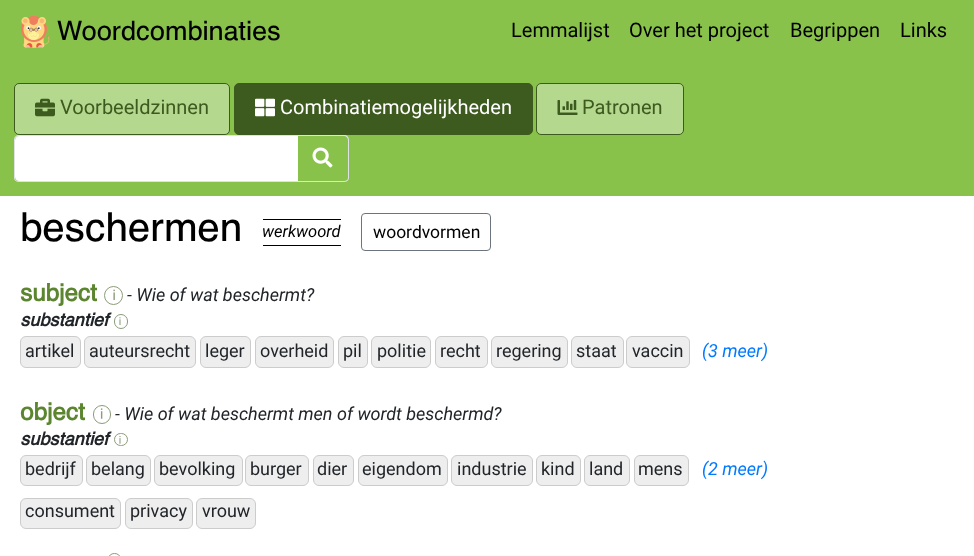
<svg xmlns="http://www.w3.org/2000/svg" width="974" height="556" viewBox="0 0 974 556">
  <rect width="100%" height="100%" fill="#fff"/>
  <path d="M0 0h974v196H0z" fill="#89c24b"/>
  <image x="21" y="16" width="29" height="32" href="img/1.png"/>
  <rect x="14.5" y="83.5" width="215" height="51" rx="4.5" fill="#b4d88d" stroke="#3d5a1f"/>
  <image x="35" y="98" width="20" height="19" href="img/2.png"/>
  <rect x="234.5" y="83.5" width="298" height="51" rx="4.5" fill="#3d5a1f" stroke="#3d5a1f"/>
  <image x="255" y="98" width="20" height="19" href="img/3.png"/>
  <rect x="536.5" y="83.5" width="147" height="51" rx="4.5" fill="#b4d88d" stroke="#3d5a1f"/>
  <image x="557" y="100" width="21" height="15" href="img/4.png"/>
  <path d="M19 136H299V181H19C17 181 15 179 15 177V140C15 138 17 136 19 136Z" fill="#fff"/>
  <path d="M19 135H299V182H19C16 182 14 180 14 178V140C14 137 16 135 19 135ZM19 136H299V181H19C17 181 15 180 15 178V140C15 138 17 136 19 136Z" fill="#dee2e6" fill-rule="evenodd"/>
  <path d="M298 136H344C346 136 348 138 348 140V177C348 179 346 181 344 181H298Z" fill="#89c24b"/>
  <path d="M298 135H344C347 135 349 137 349 140V178C349 180 347 182 344 182H298ZM298 136H344C346 136 348 138 348 140V178C348 180 346 181 344 181H298Z" fill="#dee2e6" fill-rule="evenodd"/>
  <image x="312" y="147" width="21" height="21" href="img/5.png"/>
  <path d="M263 219h78v1H263z" fill="#000"/>
  <path d="M263 245h78v1H263z" fill="#000"/>
  <rect x="361.5" y="213.5" width="129" height="37" rx="3.5" fill="none" stroke="#6c757d"/>
  <circle cx="113.5" cy="295.5" r="9" fill="none" stroke="#8b9c79"/>
  <image x="113" y="289" width="2" height="11" href="img/6.png"/>
  <rect x="114.5" y="314.5" width="13" height="14" rx="6.5" fill="none" stroke="#8b9c79"/>
  <image x="119" y="317" width="2" height="8" href="img/7.png"/>
  <rect x="20.5" y="336.5" width="60" height="31" rx="5.5" fill="#eee" stroke="#ccc"/>
  <rect x="84.5" y="336.5" width="111" height="31" rx="5.5" fill="#eee" stroke="#ccc"/>
  <rect x="200.5" y="336.5" width="50" height="31" rx="5.5" fill="#eee" stroke="#ccc"/>
  <rect x="255.5" y="336.5" width="78" height="31" rx="5.5" fill="#eee" stroke="#ccc"/>
  <rect x="338.5" y="336.5" width="29" height="31" rx="5.5" fill="#eee" stroke="#ccc"/>
  <rect x="371.5" y="336.5" width="59" height="31" rx="5.5" fill="#eee" stroke="#ccc"/>
  <rect x="435.5" y="336.5" width="52" height="31" rx="5.5" fill="#eee" stroke="#ccc"/>
  <rect x="491.5" y="336.5" width="76" height="31" rx="5.5" fill="#eee" stroke="#ccc"/>
  <rect x="571.5" y="336.5" width="52" height="31" rx="5.5" fill="#eee" stroke="#ccc"/>
  <rect x="626.5" y="336.5" width="63" height="31" rx="5.5" fill="#eee" stroke="#ccc"/>
  <rect x="93.5" y="405.5" width="17" height="18" rx="8.5" fill="none" stroke="#8b9c79"/>
  <image x="100" y="408" width="3" height="11" href="img/8.png"/>
  <rect x="114.5" y="433.5" width="13" height="12" rx="6" fill="none" stroke="#8b9c79"/>
  <image x="119" y="436" width="2" height="8" href="img/9.png"/>
  <rect x="20.5" y="455.5" width="62" height="30" rx="5.5" fill="#eee" stroke="#ccc"/>
  <rect x="86.5" y="455.5" width="64" height="30" rx="5.5" fill="#eee" stroke="#ccc"/>
  <rect x="154.5" y="455.5" width="88" height="30" rx="5.5" fill="#eee" stroke="#ccc"/>
  <rect x="245.5" y="455.5" width="63" height="30" rx="5.5" fill="#eee" stroke="#ccc"/>
  <rect x="313.5" y="455.5" width="40" height="30" rx="5.5" fill="#eee" stroke="#ccc"/>
  <rect x="358.5" y="455.5" width="89" height="30" rx="5.5" fill="#eee" stroke="#ccc"/>
  <rect x="451.5" y="455.5" width="81" height="30" rx="5.5" fill="#eee" stroke="#ccc"/>
  <rect x="536.5" y="455.5" width="44" height="30" rx="5.5" fill="#eee" stroke="#ccc"/>
  <rect x="584.5" y="455.5" width="45" height="30" rx="5.5" fill="#eee" stroke="#ccc"/>
  <rect x="634.5" y="455.5" width="54" height="30" rx="5.5" fill="#eee" stroke="#ccc"/>
  <rect x="20.5" y="498.5" width="100" height="30" rx="5.5" fill="#eee" stroke="#ccc"/>
  <rect x="125.5" y="498.5" width="67" height="30" rx="5.5" fill="#eee" stroke="#ccc"/>
  <rect x="196.5" y="498.5" width="59" height="30" rx="5.5" fill="#eee" stroke="#ccc"/>
  <rect x="108.5" y="553.5" width="12" height="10" rx="6" fill="none" stroke="#8b9c79"/>
  <text x="57" y="40" font-family="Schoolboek" font-size="26.75" fill="#000">Woordcombinaties</text>
  <g font-family="Roboto" font-size="20" fill="#000">
    <text x="511" y="37">Lemmalijst</text>
    <text x="629" y="37">Over het project</text>
    <text x="790" y="37">Begrippen</text>
    <text x="900" y="37">Links</text>
  </g>
  <text x="60" y="114" font-family="Roboto" font-size="20" fill="#3d5a1f">Voorbeeldzinnen</text>
  <text x="280" y="114" font-family="Roboto" font-size="20" fill="#fff">Combinatiemogelijkheden</text>
  <text x="582" y="114" font-family="Roboto" font-size="20" fill="#3d5a1f">Patronen</text>
  <text x="20" y="241" font-family="Schoolboek" font-size="40" fill="#000">beschermen</text>
  <text x="262" y="237" font-family="Roboto" font-size="16.5" font-style="italic" fill="#000">werkwoord</text>
  <text x="373" y="238" font-family="Roboto" font-size="17.5" fill="#000">woordvormen</text>
  <text x="20" y="301" font-family="Schoolboek" font-size="24" font-weight="bold" fill="#5b852e">subject</text>
  <text x="127" y="301" font-family="Roboto" font-size="18" font-style="italic" fill="#212529">- Wie of wat beschermt?</text>
  <text x="20" y="326" font-family="Schoolboek" font-size="18" font-weight="bold" font-style="italic" fill="#212529">substantief</text>
  <g font-family="Roboto" font-size="18" fill="#212529">
    <text x="25" y="357">artikel</text>
    <text x="89" y="357">auteursrecht</text>
    <text x="205" y="357">leger</text>
    <text x="260" y="357">overheid</text>
    <text x="343" y="357">pil</text>
    <text x="377" y="357">politie</text>
    <text x="440" y="357">recht</text>
    <text x="496" y="357">regering</text>
    <text x="576" y="357">staat</text>
    <text x="632" y="357">vaccin</text>
  </g>
  <text x="702" y="357" font-family="Roboto" font-size="18" font-style="italic" fill="#007bff">(3 meer)</text>
  <text x="20" y="420" font-family="Schoolboek" font-size="24" font-weight="bold" fill="#5b852e">object</text>
  <text x="115" y="420" font-family="Roboto" font-size="18" font-style="italic" fill="#212529">- Wie of wat beschermt men of wordt beschermd?</text>
  <text x="20" y="445" font-family="Schoolboek" font-size="18" font-weight="bold" font-style="italic" fill="#212529">substantief</text>
  <g font-family="Roboto" font-size="18" fill="#212529">
    <text x="25" y="475">bedrijf</text>
    <text x="91" y="475">belang</text>
    <text x="159" y="475">bevolking</text>
    <text x="250" y="475">burger</text>
    <text x="317" y="475">dier</text>
    <text x="362" y="475">eigendom</text>
    <text x="457" y="475">industrie</text>
    <text x="541" y="475">kind</text>
    <text x="589" y="475">land</text>
    <text x="638" y="475">mens</text>
  </g>
  <text x="702" y="475" font-family="Roboto" font-size="18" font-style="italic" fill="#007bff">(2 meer)</text>
  <g font-family="Roboto" font-size="18" fill="#212529">
    <text x="25" y="517">consument</text>
    <text x="130" y="517">privacy</text>
    <text x="202" y="517">vrouw</text>
  </g>
</svg>
